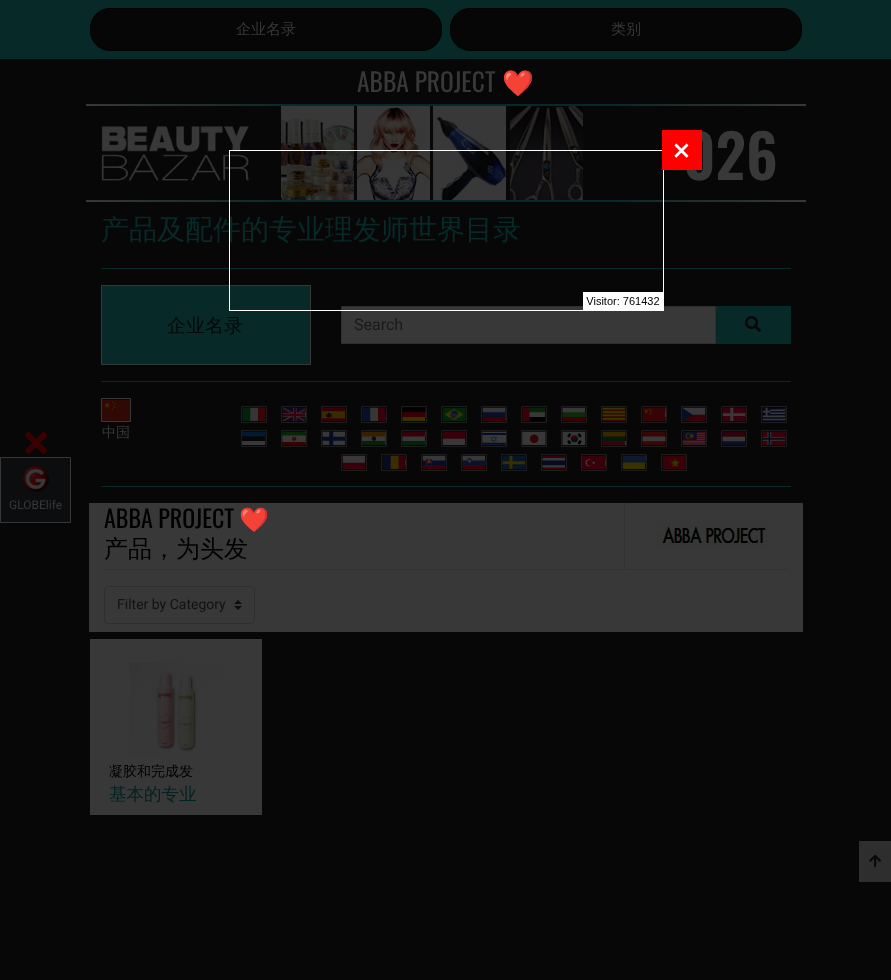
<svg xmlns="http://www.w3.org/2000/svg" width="891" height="980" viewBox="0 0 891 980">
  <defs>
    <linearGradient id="g1" gradientUnits="userSpaceOnUse" x1="86" y1="105" x2="806" y2="105"><stop offset="0" stop-color="#383838"/><stop offset="0.29" stop-color="#072a28"/><stop offset="0.73" stop-color="#072a28"/><stop offset="1" stop-color="#383838"/></linearGradient>
    <linearGradient id="g2" gradientUnits="userSpaceOnUse" x1="86" y1="201" x2="806" y2="201"><stop offset="0" stop-color="#383838"/><stop offset="0.29" stop-color="#072a28"/><stop offset="0.73" stop-color="#072a28"/><stop offset="1" stop-color="#383838"/></linearGradient>
  </defs>
  <rect width="100%" height="100%" fill="#070707"/>
  <path d="M0 0h891v59H0z" fill="#072a28"/>
  <rect x="90.5" y="8.5" width="351" height="42" rx="19.5" fill="#060606" stroke="#000"/>
  <rect x="450.5" y="8.5" width="351" height="42" rx="19.5" fill="#060606" stroke="#000"/>
  <path d="M86 104h720v2H86z" fill="url(#g1)"/>
  <image x="101" y="126" width="148" height="55" href="img/1.png"/>
  <image x="281" y="106" width="73" height="94" href="img/2.png"/>
  <image x="357" y="106" width="73" height="94" href="img/3.png"/>
  <image x="433" y="106" width="73" height="94" href="img/4.png"/>
  <image x="510" y="106" width="73" height="94" href="img/5.png"/>
  <path d="M86 200h720v2H86z" fill="url(#g2)"/>
  <path d="M101 268h690v1H101z" fill="#072a28"/>
  <path d="M101.5 285.5h209v79H101.5z" fill="#072a28" stroke="#383838"/>
  <path d="M341.5 306.5h374v37H341.5z" fill="#383838" stroke="#2d2f30"/>
  <path d="M716 306h75v38H716z" fill="#072a28"/>
  <image x="745" y="316" width="16" height="16" href="img/6.png"/>
  <path d="M101 381h690v1H101z" fill="#072a28"/>
  <path d="M101.5 398.5h29v23H101.5z" fill="none" stroke="#383838"/>
  <image x="102" y="400" width="28" height="21" href="img/7.png"/>
  <image x="242" y="407" width="24" height="14" href="img/8.png"/>
  <path d="M241.5 406.5h25v16H241.5z" fill="none" stroke="#1c1c1c"/>
  <image x="282" y="407" width="24" height="14" href="img/9.png"/>
  <path d="M281.5 406.5h25v16H281.5z" fill="none" stroke="#1c1c1c"/>
  <image x="322" y="407" width="24" height="14" href="img/10.png"/>
  <path d="M321.5 406.5h25v16H321.5z" fill="none" stroke="#1c1c1c"/>
  <image x="362" y="407" width="24" height="14" href="img/11.png"/>
  <path d="M361.5 406.5h25v16H361.5z" fill="none" stroke="#1c1c1c"/>
  <image x="402" y="407" width="24" height="14" href="img/12.png"/>
  <path d="M401.5 406.5h25v16H401.5z" fill="none" stroke="#1c1c1c"/>
  <image x="442" y="407" width="24" height="14" href="img/13.png"/>
  <path d="M441.5 406.5h25v16H441.5z" fill="none" stroke="#1c1c1c"/>
  <image x="482" y="407" width="24" height="14" href="img/14.png"/>
  <path d="M481.5 406.5h25v16H481.5z" fill="none" stroke="#1c1c1c"/>
  <image x="522" y="407" width="24" height="14" href="img/15.png"/>
  <path d="M521.5 406.5h25v16H521.5z" fill="none" stroke="#1c1c1c"/>
  <image x="562" y="407" width="24" height="14" href="img/16.png"/>
  <path d="M561.5 406.5h25v16H561.5z" fill="none" stroke="#1c1c1c"/>
  <image x="602" y="407" width="24" height="14" href="img/17.png"/>
  <path d="M601.5 406.5h25v16H601.5z" fill="none" stroke="#1c1c1c"/>
  <image x="642" y="407" width="24" height="14" href="img/18.png"/>
  <path d="M641.5 406.5h25v16H641.5z" fill="none" stroke="#1c1c1c"/>
  <image x="682" y="407" width="24" height="14" href="img/19.png"/>
  <path d="M681.5 406.5h25v16H681.5z" fill="none" stroke="#1c1c1c"/>
  <image x="722" y="407" width="24" height="14" href="img/20.png"/>
  <path d="M721.5 406.5h25v16H721.5z" fill="none" stroke="#1c1c1c"/>
  <image x="762" y="407" width="24" height="14" href="img/21.png"/>
  <path d="M761.5 406.5h25v16H761.5z" fill="none" stroke="#1c1c1c"/>
  <image x="242" y="431" width="24" height="14" href="img/22.png"/>
  <path d="M241.5 430.5h25v16H241.5z" fill="none" stroke="#1c1c1c"/>
  <image x="282" y="431" width="24" height="14" href="img/23.png"/>
  <path d="M281.5 430.5h25v16H281.5z" fill="none" stroke="#1c1c1c"/>
  <image x="322" y="431" width="24" height="14" href="img/24.png"/>
  <path d="M321.5 430.5h25v16H321.5z" fill="none" stroke="#1c1c1c"/>
  <image x="362" y="431" width="24" height="14" href="img/25.png"/>
  <path d="M361.5 430.5h25v16H361.5z" fill="none" stroke="#1c1c1c"/>
  <image x="402" y="431" width="24" height="14" href="img/26.png"/>
  <path d="M401.5 430.5h25v16H401.5z" fill="none" stroke="#1c1c1c"/>
  <image x="442" y="431" width="24" height="14" href="img/27.png"/>
  <path d="M441.5 430.5h25v16H441.5z" fill="none" stroke="#1c1c1c"/>
  <image x="482" y="431" width="24" height="14" href="img/28.png"/>
  <path d="M481.5 430.5h25v16H481.5z" fill="none" stroke="#1c1c1c"/>
  <image x="522" y="431" width="24" height="14" href="img/29.png"/>
  <path d="M521.5 430.5h25v16H521.5z" fill="none" stroke="#1c1c1c"/>
  <image x="562" y="431" width="24" height="14" href="img/30.png"/>
  <path d="M561.5 430.5h25v16H561.5z" fill="none" stroke="#1c1c1c"/>
  <image x="602" y="431" width="24" height="14" href="img/31.png"/>
  <path d="M601.5 430.5h25v16H601.5z" fill="none" stroke="#1c1c1c"/>
  <image x="642" y="431" width="24" height="14" href="img/32.png"/>
  <path d="M641.5 430.5h25v16H641.5z" fill="none" stroke="#1c1c1c"/>
  <image x="682" y="431" width="24" height="14" href="img/33.png"/>
  <path d="M681.5 430.5h25v16H681.5z" fill="none" stroke="#1c1c1c"/>
  <image x="722" y="431" width="24" height="14" href="img/34.png"/>
  <path d="M721.5 430.5h25v16H721.5z" fill="none" stroke="#1c1c1c"/>
  <image x="762" y="431" width="24" height="14" href="img/35.png"/>
  <path d="M761.5 430.5h25v16H761.5z" fill="none" stroke="#1c1c1c"/>
  <image x="342" y="455" width="24" height="14" href="img/36.png"/>
  <path d="M341.5 454.5h25v16H341.5z" fill="none" stroke="#1c1c1c"/>
  <image x="382" y="455" width="24" height="14" href="img/37.png"/>
  <path d="M381.5 454.5h25v16H381.5z" fill="none" stroke="#1c1c1c"/>
  <image x="422" y="455" width="24" height="14" href="img/38.png"/>
  <path d="M421.5 454.5h25v16H421.5z" fill="none" stroke="#1c1c1c"/>
  <image x="462" y="455" width="24" height="14" href="img/39.png"/>
  <path d="M461.5 454.5h25v16H461.5z" fill="none" stroke="#1c1c1c"/>
  <image x="502" y="455" width="24" height="14" href="img/40.png"/>
  <path d="M501.5 454.5h25v16H501.5z" fill="none" stroke="#1c1c1c"/>
  <image x="542" y="455" width="24" height="14" href="img/41.png"/>
  <path d="M541.5 454.5h25v16H541.5z" fill="none" stroke="#1c1c1c"/>
  <image x="582" y="455" width="24" height="14" href="img/42.png"/>
  <path d="M581.5 454.5h25v16H581.5z" fill="none" stroke="#1c1c1c"/>
  <image x="622" y="455" width="24" height="14" href="img/43.png"/>
  <path d="M621.5 454.5h25v16H621.5z" fill="none" stroke="#1c1c1c"/>
  <image x="662" y="455" width="24" height="14" href="img/44.png"/>
  <path d="M661.5 454.5h25v16H661.5z" fill="none" stroke="#1c1c1c"/>
  <path d="M101 486h690v1H101z" fill="#072a28"/>
  <path d="M89 503h714v129H89z" fill="#383838"/>
  <path d="M624 503h1v66H624z" fill="#313233"/>
  <image x="656" y="519" width="112" height="30" href="img/45.png"/>
  <path d="M104 569h684v1H104z" fill="#333"/>
  <image x="234" y="600" width="8" height="10" href="img/46.png"/>
  <rect x="104.5" y="586.5" width="150" height="37" rx="3.5" fill="none" stroke="#2d2f30"/>
  <path d="M90 639h172v176H90z" fill="#383838"/>
  <image x="129" y="663" width="94" height="94" href="img/47.png"/>
  <image x="25" y="432" width="22" height="22" href="img/49.png"/>
  <path d="M0.5 457.5h70v65H0.5z" fill="#0b0d0e" stroke="#373737"/>
  <image x="23" y="466" width="26" height="26" href="img/50.png"/>
  <path d="M859 841h32v41H859z" fill="#2e2e2e"/>
  <image x="869" y="854" width="12" height="13" href="img/51.png"/>
  <g font-family="WenQuanYi Zen Hei" font-size="15" font-weight="500" fill="#383838">
    <text x="236" y="34">企业名录</text>
    <text x="611" y="34">类别</text>
  </g>
  <text x="357" y="92" font-family="Oswald" font-size="25.5" fill="#383838">ABBA PROJECT</text>
  <text x="502" y="92" font-family="Noto Color Emoji" font-size="25.5" fill="#383838">❤️</text>
  <text x="683" y="180" font-family="Oswald" font-size="60" font-weight="600" fill="#383838">026</text>
  <text x="101" y="239" font-family="WenQuanYi Zen Hei" font-size="28" font-weight="500" fill="#072a28">产品及配件的专业理发师世界目录</text>
  <text x="167" y="332" font-family="WenQuanYi Zen Hei" font-size="19" font-weight="500" fill="#070707">企业名录</text>
  <text x="354" y="330" font-family="Roboto" font-size="16" fill="#181a1b">Search</text>
  <text x="102" y="437" font-family="WenQuanYi Zen Hei" font-size="14" font-weight="500" fill="#383838">中国</text>
  <text x="104" y="528" font-family="Oswald" font-size="24" fill="#000">ABBA PROJECT</text>
  <text x="239" y="528" font-family="Noto Color Emoji" font-size="24" fill="#000">❤️</text>
  <text x="104" y="557" font-family="WenQuanYi Zen Hei" font-size="24" font-weight="500" fill="#000">产品，为头发</text>
  <text x="117" y="609" font-family="Roboto" font-size="14" fill="#101213">Filter by Category</text>
  <text x="109" y="776" font-family="WenQuanYi Zen Hei" font-size="14" font-weight="500" fill="#000">凝胶和完成发</text>
  <text x="109" y="800" font-family="WenQuanYi Zen Hei" font-size="17.5" font-weight="500" fill="#002220">基本的专业</text>
  <image x="229" y="150" width="435" height="161" href="img/48.png"/>
  <path d="M662 130h40v40H662z" fill="#f00"/>
  <text x="673" y="161" font-family="Roboto" font-size="32" fill="#fff">×</text>
  <text x="9" y="509" font-family="Roboto" font-size="12" fill="#383838">GLOBElife</text>
</svg>
